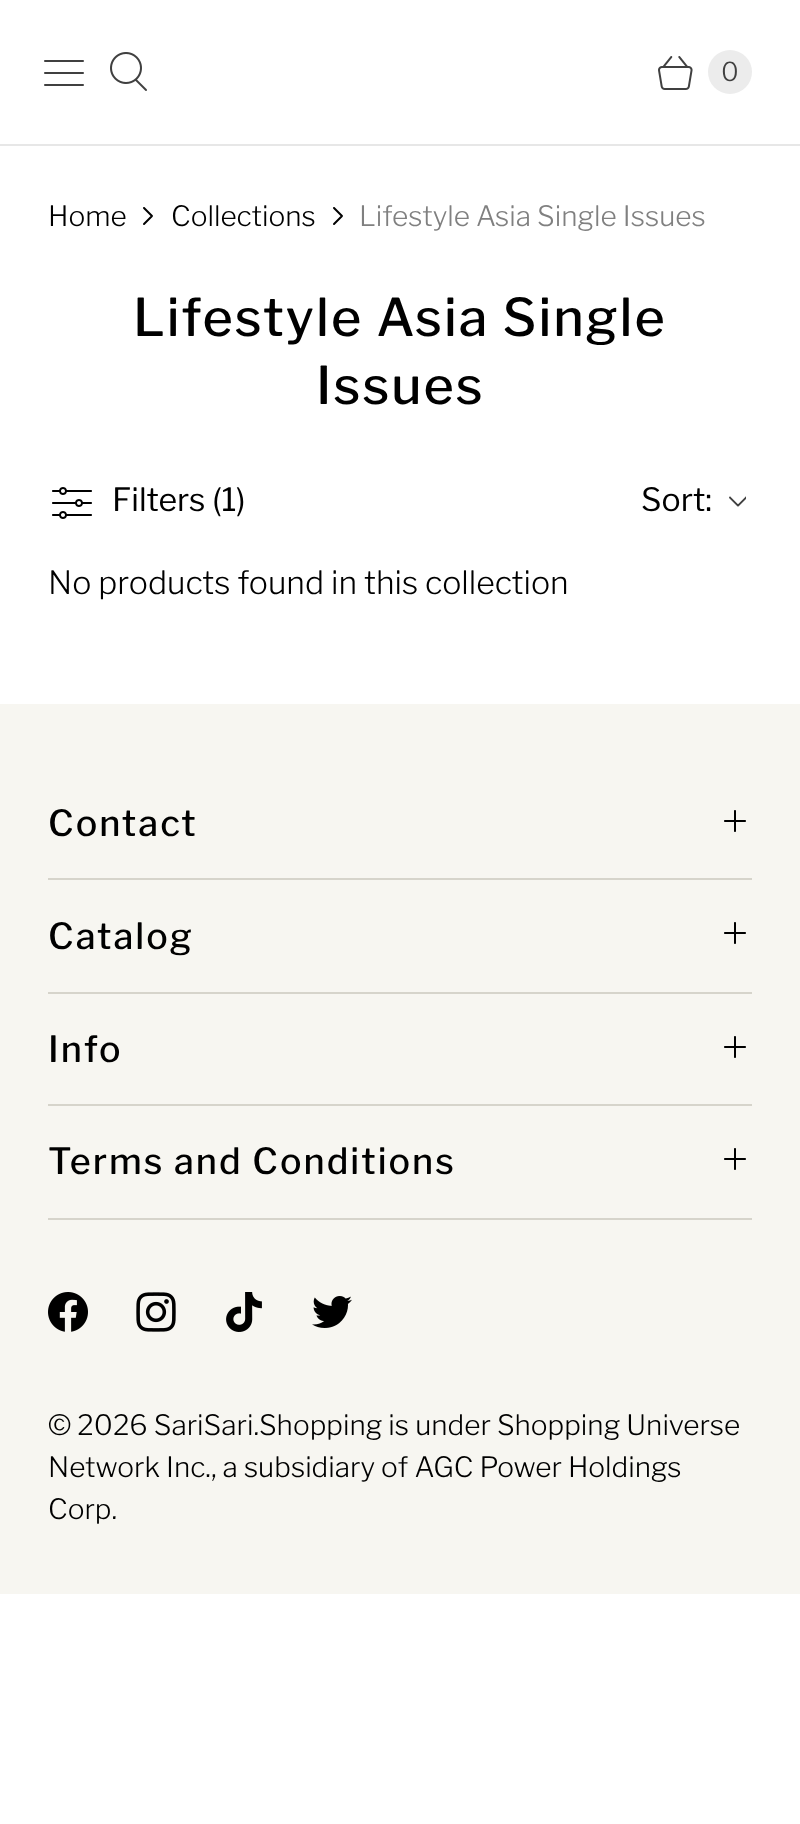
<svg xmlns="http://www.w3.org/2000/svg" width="800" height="1824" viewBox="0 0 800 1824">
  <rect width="100%" height="100%" fill="#fff"/>
  <path d="M0 144h800v2H0z" fill="#e7e7e7"/>
  <image x="44" y="60" width="40" height="26" href="img/1.png"/>
  <image x="110" y="52" width="37" height="39" href="img/2.png"/>
  <image x="658" y="56" width="35" height="34" href="img/3.png"/>
  <circle cx="730" cy="72" r="22" fill="#ececec"/>
  <image x="143" y="207" width="10" height="18" href="img/4.png"/>
  <image x="333" y="207" width="10" height="18" href="img/4.png"/>
  <image x="52" y="487" width="40" height="32" href="img/5.png"/>
  <image x="729" y="496" width="17" height="11" href="img/6.png"/>
  <path d="M0 704h800v890H0z" fill="#f7f6f1"/>
  <path d="M48 878h704v2H48z" fill="#d6d4cb"/>
  <image x="724" y="810" width="22" height="22" href="img/7.png"/>
  <path d="M48 992h704v2H48z" fill="#d6d4cb"/>
  <image x="724" y="922" width="22" height="22" href="img/7.png"/>
  <path d="M48 1104h704v2H48z" fill="#d6d4cb"/>
  <image x="724" y="1036" width="22" height="22" href="img/7.png"/>
  <path d="M48 1218h704v2H48z" fill="#d6d4cb"/>
  <image x="724" y="1148" width="22" height="22" href="img/7.png"/>
  <image x="48" y="1292" width="40" height="40" href="img/8.png"/>
  <image x="136" y="1292" width="40" height="40" href="img/9.png"/>
  <image x="226" y="1292" width="36" height="40" href="img/10.png"/>
  <image x="312" y="1296" width="40" height="32" href="img/11.png"/>
  <text x="721" y="81" font-family="Libre Franklin" font-size="26" font-weight="300" fill="#404040">0</text>
  <g font-family="Libre Franklin" font-size="28" font-weight="300" fill="#000">
    <text x="48" y="226">Home</text>
    <text x="171" y="226">Collections</text>
  </g>
  <text x="359" y="226" font-family="Libre Franklin" font-size="28" font-weight="300" fill="#808080">Lifestyle Asia Single Issues</text>
  <g font-family="Libre Franklin" font-size="52" font-weight="500" letter-spacing="2" fill="#000">
    <text x="133" y="336">Lifestyle Asia Single</text>
    <text x="316" y="404">Issues</text>
  </g>
  <g font-family="Libre Franklin" font-size="32" fill="#000">
    <text x="112" y="511">Filters (1)</text>
    <text x="641" y="511">Sort:</text>
  </g>
  <text x="48" y="594" font-family="Libre Franklin" font-size="32" font-weight="300" fill="#000">No products found in this collection</text>
  <g font-family="Libre Franklin" font-size="36" font-weight="500" letter-spacing="2" fill="#000">
    <text x="48" y="836">Contact</text>
    <text x="48" y="949">Catalog</text>
    <text x="48" y="1062">Info</text>
    <text x="48" y="1174">Terms and Conditions</text>
  </g>
  <g font-family="Libre Franklin" font-size="28" font-weight="300" fill="#000">
    <text x="48" y="1435">© 2026 SariSari.Shopping is under Shopping Universe</text>
    <text x="48" y="1477">Network Inc., a subsidiary of AGC Power Holdings</text>
    <text x="48" y="1519">Corp.</text>
  </g>
</svg>
